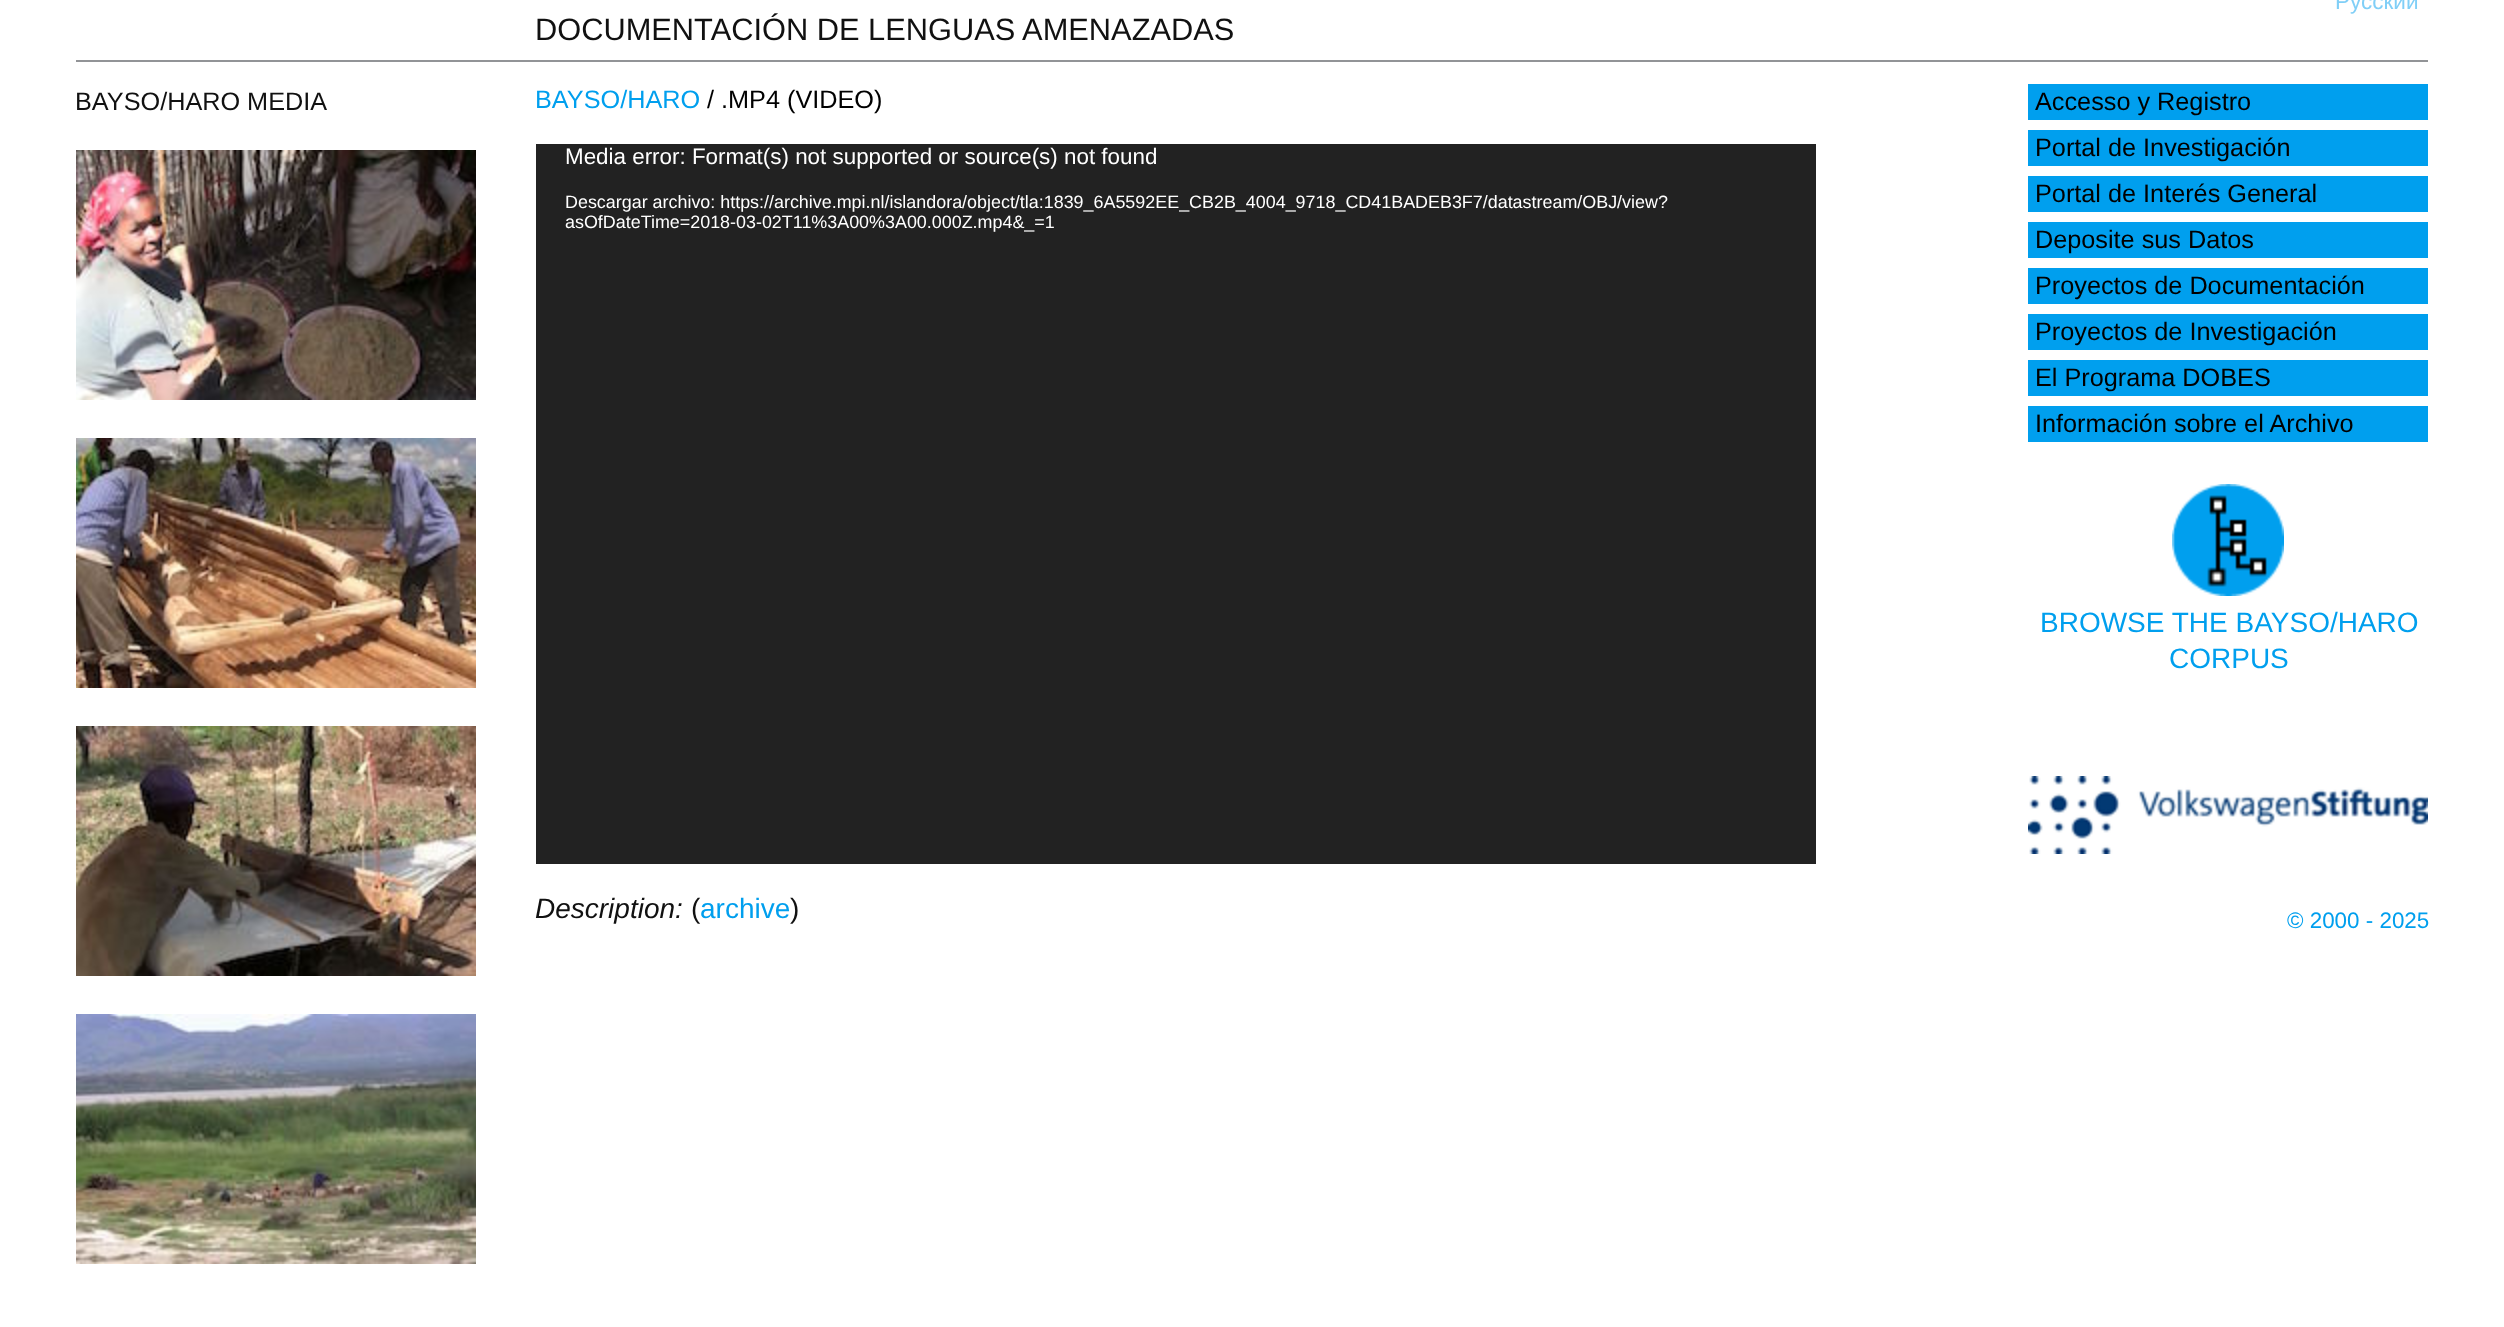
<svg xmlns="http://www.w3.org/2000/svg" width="2504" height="1327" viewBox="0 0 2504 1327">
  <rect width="100%" height="100%" fill="#fff"/>
  <path d="M76 60h2352v2H76z" fill="#929497"/>
  <image x="76" y="150" width="400" height="250" href="img/1.png"/>
  <image x="76" y="438" width="400" height="250" href="img/2.png"/>
  <image x="76" y="726" width="400" height="250" href="img/3.png"/>
  <image x="76" y="1014" width="400" height="250" href="img/4.png"/>
  <path d="M536 144h1280v720H536z" fill="#222"/>
  <path d="M2028 84h400v36H2028z" fill="#009fee"/>
  <path d="M2028 130h400v36H2028z" fill="#009fee"/>
  <path d="M2028 176h400v36H2028z" fill="#009fee"/>
  <path d="M2028 222h400v36H2028z" fill="#009fee"/>
  <path d="M2028 268h400v36H2028z" fill="#009fee"/>
  <path d="M2028 314h400v36H2028z" fill="#009fee"/>
  <path d="M2028 360h400v36H2028z" fill="#009fee"/>
  <path d="M2028 406h400v36H2028z" fill="#009fee"/>
  <image x="2172" y="484" width="112" height="112" href="img/5.png"/>
  <image x="2028" y="776" width="400" height="78" href="img/6.png"/>
  <text x="2335" y="9" font-family="Liberation Sans" font-size="22.5" fill="#80cff7">Русский</text>
  <text x="535" y="40" font-family="Liberation Sans" font-size="30.8" fill="#111">DOCUMENTACIÓN DE LENGUAS AMENAZADAS</text>
  <text x="75" y="110" font-family="Liberation Sans" font-size="25.25" fill="#111">BAYSO/HARO MEDIA</text>
  <text x="535" y="108" font-family="Liberation Sans" font-size="25.25" fill="#009fee">BAYSO/HARO</text>
  <text x="707" y="108" font-family="Liberation Sans" font-size="25.25" fill="#000">/ .MP4 (VIDEO)</text>
  <text x="565" y="164" font-family="Liberation Sans" font-size="22.4" fill="#fff">Media error: Format(s) not supported or source(s) not found</text>
  <g font-family="Liberation Sans" font-size="17.92" fill="#fff">
    <text x="565" y="208">Descargar archivo: https://archive.mpi.nl/islandora/object/tla:1839_6A5592EE_CB2B_4004_9718_CD41BADEB3F7/datastream/OBJ/view?</text>
    <text x="565" y="228">asOfDateTime=2018-03-02T11%3A00%3A00.000Z.mp4&amp;_=1</text>
  </g>
  <text x="535" y="918" font-family="Liberation Sans" font-size="28" font-style="italic" fill="#111">Description:</text>
  <text x="691" y="918" font-family="Liberation Sans" font-size="28" fill="#111">(</text>
  <text x="700" y="918" font-family="Liberation Sans" font-size="28" fill="#009fee">archive</text>
  <text x="790" y="918" font-family="Liberation Sans" font-size="28" fill="#111">)</text>
  <g font-family="Liberation Sans" font-size="25.25" fill="#000">
    <text x="2035" y="110">Accesso y Registro</text>
    <text x="2035" y="156">Portal de Investigación</text>
    <text x="2035" y="202">Portal de Interés General</text>
    <text x="2035" y="248">Deposite sus Datos</text>
    <text x="2035" y="294">Proyectos de Documentación</text>
    <text x="2035" y="340">Proyectos de Investigación</text>
    <text x="2035" y="386">El Programa DOBES</text>
    <text x="2035" y="432">Información sobre el Archivo</text>
  </g>
  <g font-family="Liberation Sans" font-size="28" fill="#009fee">
    <text x="2040" y="632">BROWSE THE BAYSO/HARO</text>
    <text x="2169" y="668">CORPUS</text>
  </g>
  <text x="2287" y="928" font-family="Liberation Sans" font-size="22.4" fill="#009fee">© 2000 - 2025</text>
</svg>
